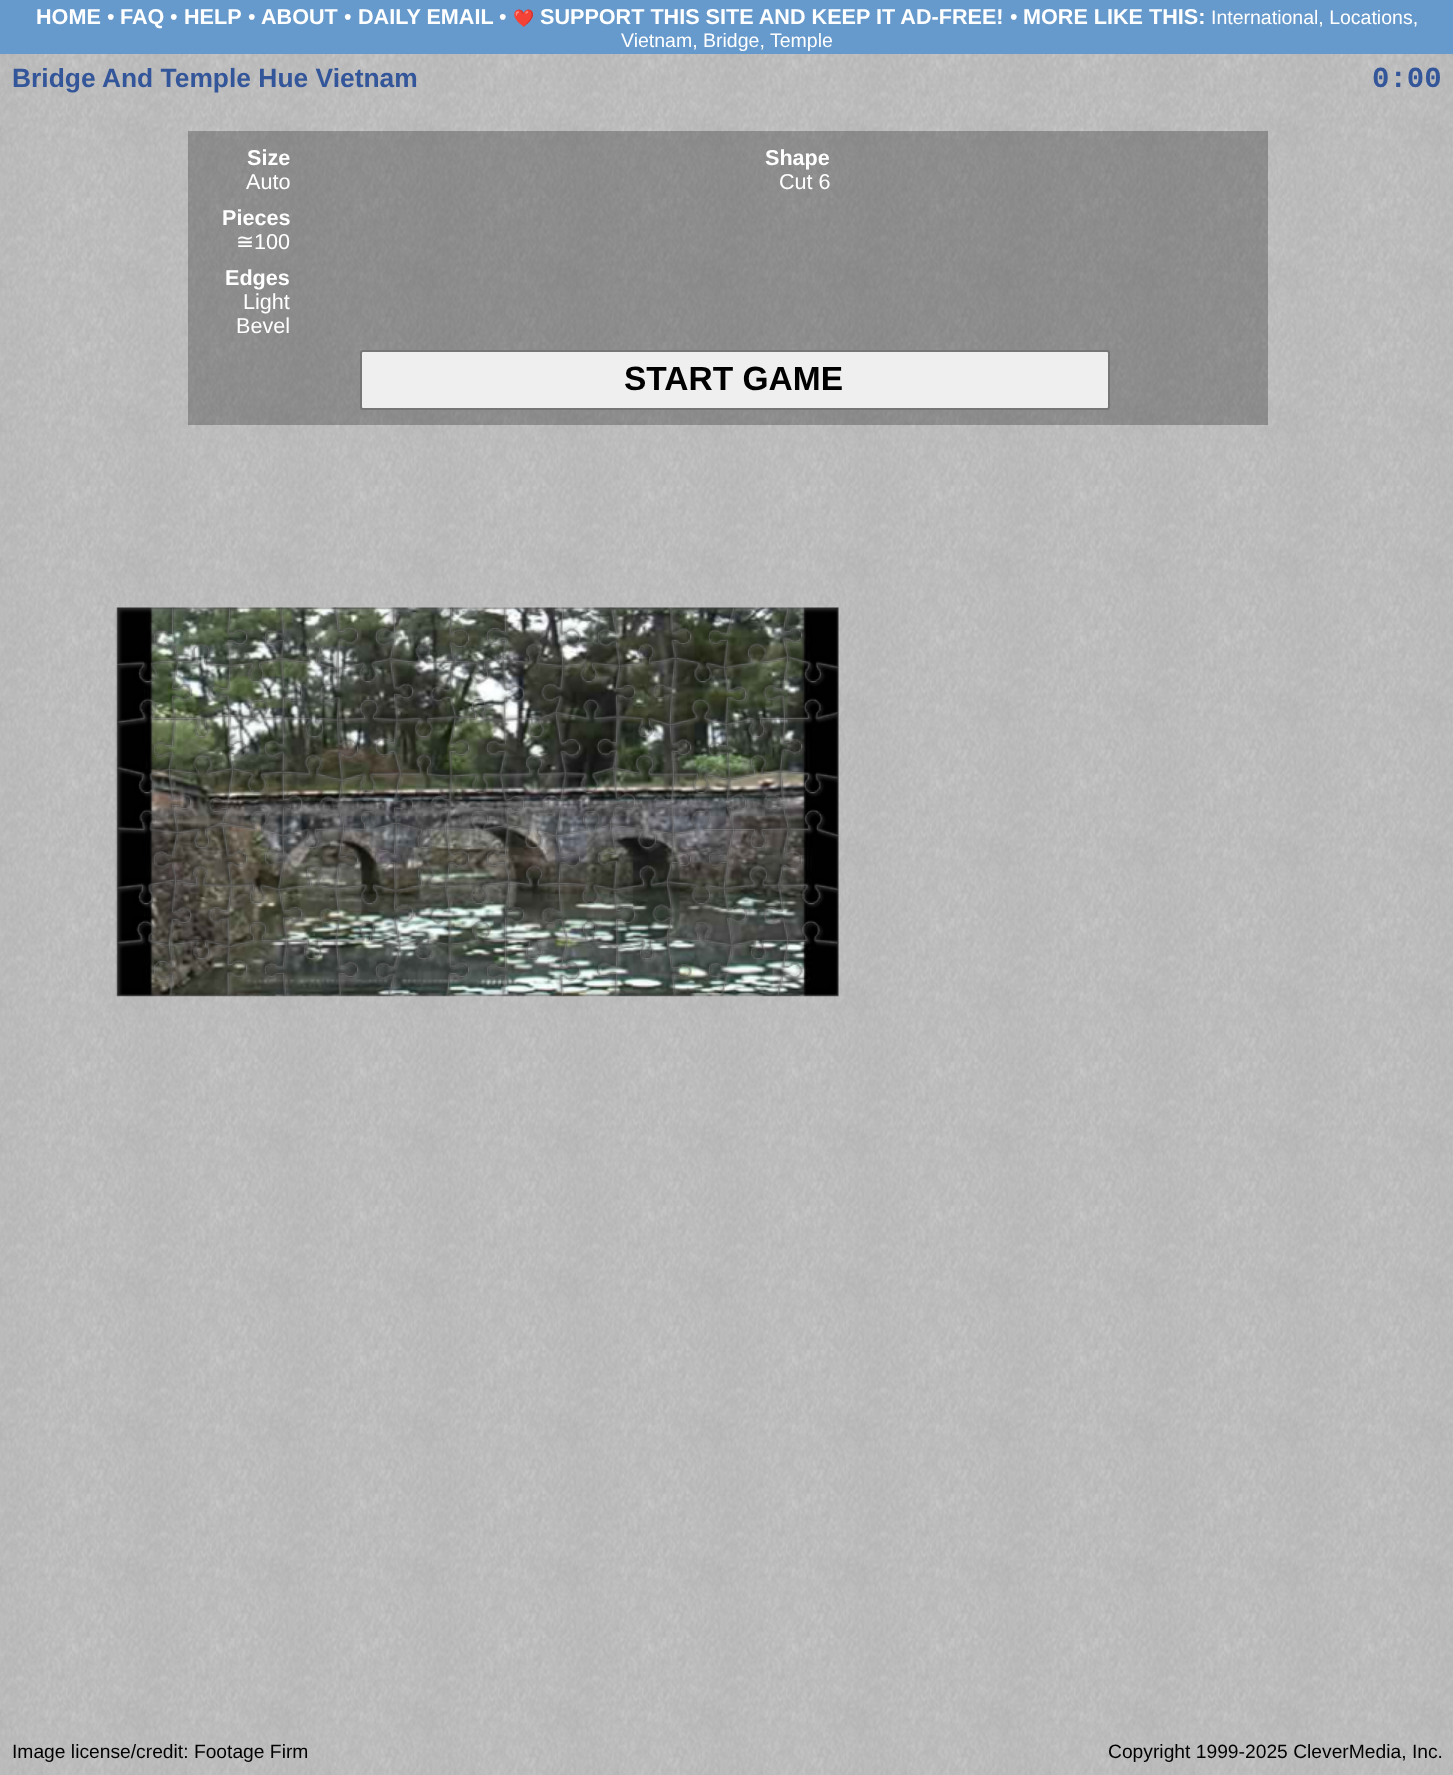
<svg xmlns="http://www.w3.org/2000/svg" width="1453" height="1775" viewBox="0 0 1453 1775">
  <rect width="100%" height="100%" fill="#69c"/>
  <image x="0" y="54" width="1453" height="1721" href="img/1.png"/>
  <image x="115" y="607" width="64" height="74" href="img/2.png"/>
  <image x="153" y="607" width="93" height="60" href="img/3.png"/>
  <image x="228" y="607" width="56" height="74" href="img/4.png"/>
  <image x="264" y="607" width="93" height="64" href="img/5.png"/>
  <image x="334" y="607" width="61" height="74" href="img/6.png"/>
  <image x="375" y="607" width="93" height="57" href="img/7.png"/>
  <image x="450" y="607" width="56" height="74" href="img/8.png"/>
  <image x="486" y="607" width="93" height="61" href="img/9.png"/>
  <image x="560" y="607" width="60" height="74" href="img/10.png"/>
  <image x="597" y="607" width="93" height="60" href="img/11.png"/>
  <image x="670" y="607" width="65" height="74" href="img/12.png"/>
  <image x="708" y="607" width="93" height="61" href="img/13.png"/>
  <image x="782" y="607" width="57" height="74" href="img/14.png"/>
  <image x="115" y="660" width="76" height="64" href="img/15.png"/>
  <image x="172" y="643" width="60" height="94" href="img/16.png"/>
  <image x="208" y="658" width="94" height="61" href="img/17.png"/>
  <image x="280" y="643" width="60" height="94" href="img/18.png"/>
  <image x="319" y="658" width="94" height="63" href="img/19.png"/>
  <image x="390" y="643" width="67" height="94" href="img/20.png"/>
  <image x="430" y="659" width="94" height="62" href="img/21.png"/>
  <image x="502" y="643" width="63" height="94" href="img/22.png"/>
  <image x="541" y="663" width="94" height="56" href="img/23.png"/>
  <image x="616" y="643" width="61" height="94" href="img/24.png"/>
  <image x="652" y="657" width="94" height="69" href="img/25.png"/>
  <image x="724" y="643" width="66" height="94" href="img/26.png"/>
  <image x="763" y="657" width="76" height="62" href="img/27.png"/>
  <image x="115" y="699" width="61" height="93" href="img/28.png"/>
  <image x="153" y="715" width="93" height="60" href="img/29.png"/>
  <image x="228" y="699" width="56" height="93" href="img/30.png"/>
  <image x="264" y="717" width="93" height="65" href="img/31.png"/>
  <image x="337" y="699" width="64" height="93" href="img/32.png"/>
  <image x="375" y="717" width="93" height="61" href="img/33.png"/>
  <image x="450" y="699" width="56" height="93" href="img/34.png"/>
  <image x="486" y="712" width="93" height="64" href="img/35.png"/>
  <image x="555" y="699" width="64" height="93" href="img/36.png"/>
  <image x="597" y="715" width="93" height="61" href="img/37.png"/>
  <image x="669" y="699" width="62" height="93" href="img/38.png"/>
  <image x="708" y="718" width="93" height="63" href="img/39.png"/>
  <image x="780" y="699" width="59" height="93" href="img/40.png"/>
  <image x="115" y="766" width="76" height="67" href="img/41.png"/>
  <image x="168" y="754" width="67" height="94" href="img/42.png"/>
  <image x="208" y="768" width="94" height="69" href="img/43.png"/>
  <image x="282" y="754" width="63" height="94" href="img/44.png"/>
  <image x="319" y="772" width="94" height="58" href="img/45.png"/>
  <image x="394" y="754" width="58" height="94" href="img/46.png"/>
  <image x="430" y="774" width="94" height="56" href="img/47.png"/>
  <image x="499" y="754" width="67" height="94" href="img/48.png"/>
  <image x="541" y="767" width="94" height="71" href="img/49.png"/>
  <image x="609" y="754" width="66" height="94" href="img/50.png"/>
  <image x="652" y="774" width="94" height="62" href="img/51.png"/>
  <image x="727" y="754" width="63" height="94" href="img/52.png"/>
  <image x="763" y="769" width="76" height="68" href="img/53.png"/>
  <image x="115" y="810" width="64" height="93" href="img/54.png"/>
  <image x="153" y="823" width="93" height="64" href="img/55.png"/>
  <image x="222" y="810" width="62" height="93" href="img/56.png"/>
  <image x="264" y="828" width="93" height="62" href="img/57.png"/>
  <image x="334" y="810" width="64" height="93" href="img/58.png"/>
  <image x="375" y="822" width="93" height="70" href="img/59.png"/>
  <image x="445" y="810" width="66" height="93" href="img/60.png"/>
  <image x="486" y="825" width="93" height="61" href="img/61.png"/>
  <image x="555" y="810" width="62" height="93" href="img/62.png"/>
  <image x="597" y="823" width="93" height="67" href="img/63.png"/>
  <image x="666" y="810" width="69" height="93" href="img/64.png"/>
  <image x="708" y="828" width="93" height="62" href="img/65.png"/>
  <image x="778" y="810" width="61" height="93" href="img/66.png"/>
  <image x="115" y="879" width="76" height="68" href="img/67.png"/>
  <image x="168" y="865" width="65" height="94" href="img/68.png"/>
  <image x="208" y="885" width="94" height="62" href="img/69.png"/>
  <image x="278" y="865" width="62" height="94" href="img/70.png"/>
  <image x="319" y="885" width="94" height="62" href="img/71.png"/>
  <image x="394" y="865" width="57" height="94" href="img/72.png"/>
  <image x="430" y="880" width="94" height="66" href="img/73.png"/>
  <image x="504" y="865" width="64" height="94" href="img/74.png"/>
  <image x="541" y="882" width="94" height="65" href="img/75.png"/>
  <image x="613" y="865" width="60" height="94" href="img/76.png"/>
  <image x="652" y="882" width="94" height="65" href="img/77.png"/>
  <image x="723" y="865" width="67" height="94" href="img/78.png"/>
  <image x="763" y="885" width="76" height="59" href="img/79.png"/>
  <image x="115" y="921" width="58" height="76" href="img/80.png"/>
  <image x="153" y="940" width="93" height="57" href="img/81.png"/>
  <image x="228" y="921" width="59" height="76" href="img/82.png"/>
  <image x="264" y="940" width="93" height="57" href="img/83.png"/>
  <image x="336" y="921" width="65" height="76" href="img/84.png"/>
  <image x="375" y="940" width="93" height="57" href="img/85.png"/>
  <image x="447" y="921" width="59" height="76" href="img/86.png"/>
  <image x="486" y="937" width="93" height="60" href="img/87.png"/>
  <image x="560" y="921" width="59" height="76" href="img/88.png"/>
  <image x="597" y="937" width="93" height="60" href="img/89.png"/>
  <image x="666" y="921" width="67" height="76" href="img/90.png"/>
  <image x="708" y="940" width="93" height="57" href="img/91.png"/>
  <image x="777" y="921" width="62" height="76" href="img/92.png"/>
  <path d="M188 131h1080v294H188z" fill="#00000040"/>
  <rect x="361" y="351" width="748" height="58" rx="2" fill="#efefef" stroke="#767676" stroke-width="2"/>
  <text x="36" y="24" font-family="Liberation Sans" font-size="21.6" font-weight="bold" fill="#fff">HOME</text>
  <text x="107" y="24" font-family="Liberation Sans" font-size="21.6" fill="#fff">•</text>
  <text x="120" y="24" font-family="Liberation Sans" font-size="21.6" font-weight="bold" fill="#fff">FAQ</text>
  <text x="170" y="24" font-family="Liberation Sans" font-size="21.6" fill="#fff">•</text>
  <text x="184" y="24" font-family="Liberation Sans" font-size="21.6" font-weight="bold" fill="#fff">HELP</text>
  <text x="248" y="24" font-family="Liberation Sans" font-size="21.6" fill="#fff">•</text>
  <text x="261" y="24" font-family="Liberation Sans" font-size="21.6" font-weight="bold" fill="#fff">ABOUT</text>
  <text x="344" y="24" font-family="Liberation Sans" font-size="21.6" fill="#fff">•</text>
  <text x="358" y="24" font-family="Liberation Sans" font-size="21.6" font-weight="bold" fill="#fff">DAILY EMAIL</text>
  <text x="499" y="24" font-family="Liberation Sans" font-size="21.6" fill="#fff">•</text>
  <text x="513" y="24" font-family="Noto Color Emoji" font-size="17" fill="#fff">❤️</text>
  <text x="540" y="24" font-family="Liberation Sans" font-size="21.6" font-weight="bold" fill="#fff">SUPPORT THIS SITE AND KEEP IT AD-FREE!</text>
  <text x="1010" y="24" font-family="Liberation Sans" font-size="21.6" fill="#fff">•</text>
  <text x="1023" y="24" font-family="Liberation Sans" font-size="21.6" font-weight="bold" fill="#fff">MORE LIKE THIS:</text>
  <g font-family="Liberation Sans" font-size="19.5" fill="#fff">
    <text x="1211" y="24">International, Locations,</text>
    <text x="621" y="47">Vietnam, Bridge,</text>
    <text x="770" y="47">Temple</text>
  </g>
  <text x="12" y="87" font-family="Liberation Sans" font-size="26.4" font-weight="bold" fill="#359">Bridge And Temple Hue Vietnam</text>
  <text x="1372" y="87" font-family="Liberation Mono" font-size="29" font-weight="bold" fill="#359">0:00</text>
  <text x="247" y="165" font-family="Liberation Sans" font-size="21.6" font-weight="bold" fill="#fff">Size</text>
  <text x="246" y="189" font-family="Liberation Sans" font-size="21.6" fill="#fff">Auto</text>
  <text x="222" y="225" font-family="Liberation Sans" font-size="21.6" font-weight="bold" fill="#fff">Pieces</text>
  <text x="236" y="249" font-family="DejaVu Sans" font-size="21.6" fill="#fff">≅</text>
  <text x="254" y="249" font-family="Liberation Sans" font-size="21.6" fill="#fff">100</text>
  <text x="225" y="285" font-family="Liberation Sans" font-size="21.6" font-weight="bold" fill="#fff">Edges</text>
  <g font-family="Liberation Sans" font-size="21.6" fill="#fff">
    <text x="243" y="309">Light</text>
    <text x="236" y="333">Bevel</text>
  </g>
  <text x="765" y="165" font-family="Liberation Sans" font-size="21.6" font-weight="bold" fill="#fff">Shape</text>
  <text x="779" y="189" font-family="Liberation Sans" font-size="21.6" fill="#fff">Cut 6</text>
  <text x="624" y="390" font-family="Liberation Sans" font-size="33.5" font-weight="bold" fill="#000">START GAME</text>
  <g font-family="Liberation Sans" font-size="19.25" fill="#000">
    <text x="12" y="1758">Image license/credit: Footage Firm</text>
    <text x="1108" y="1758">Copyright 1999-2025 CleverMedia, Inc.</text>
  </g>
</svg>
